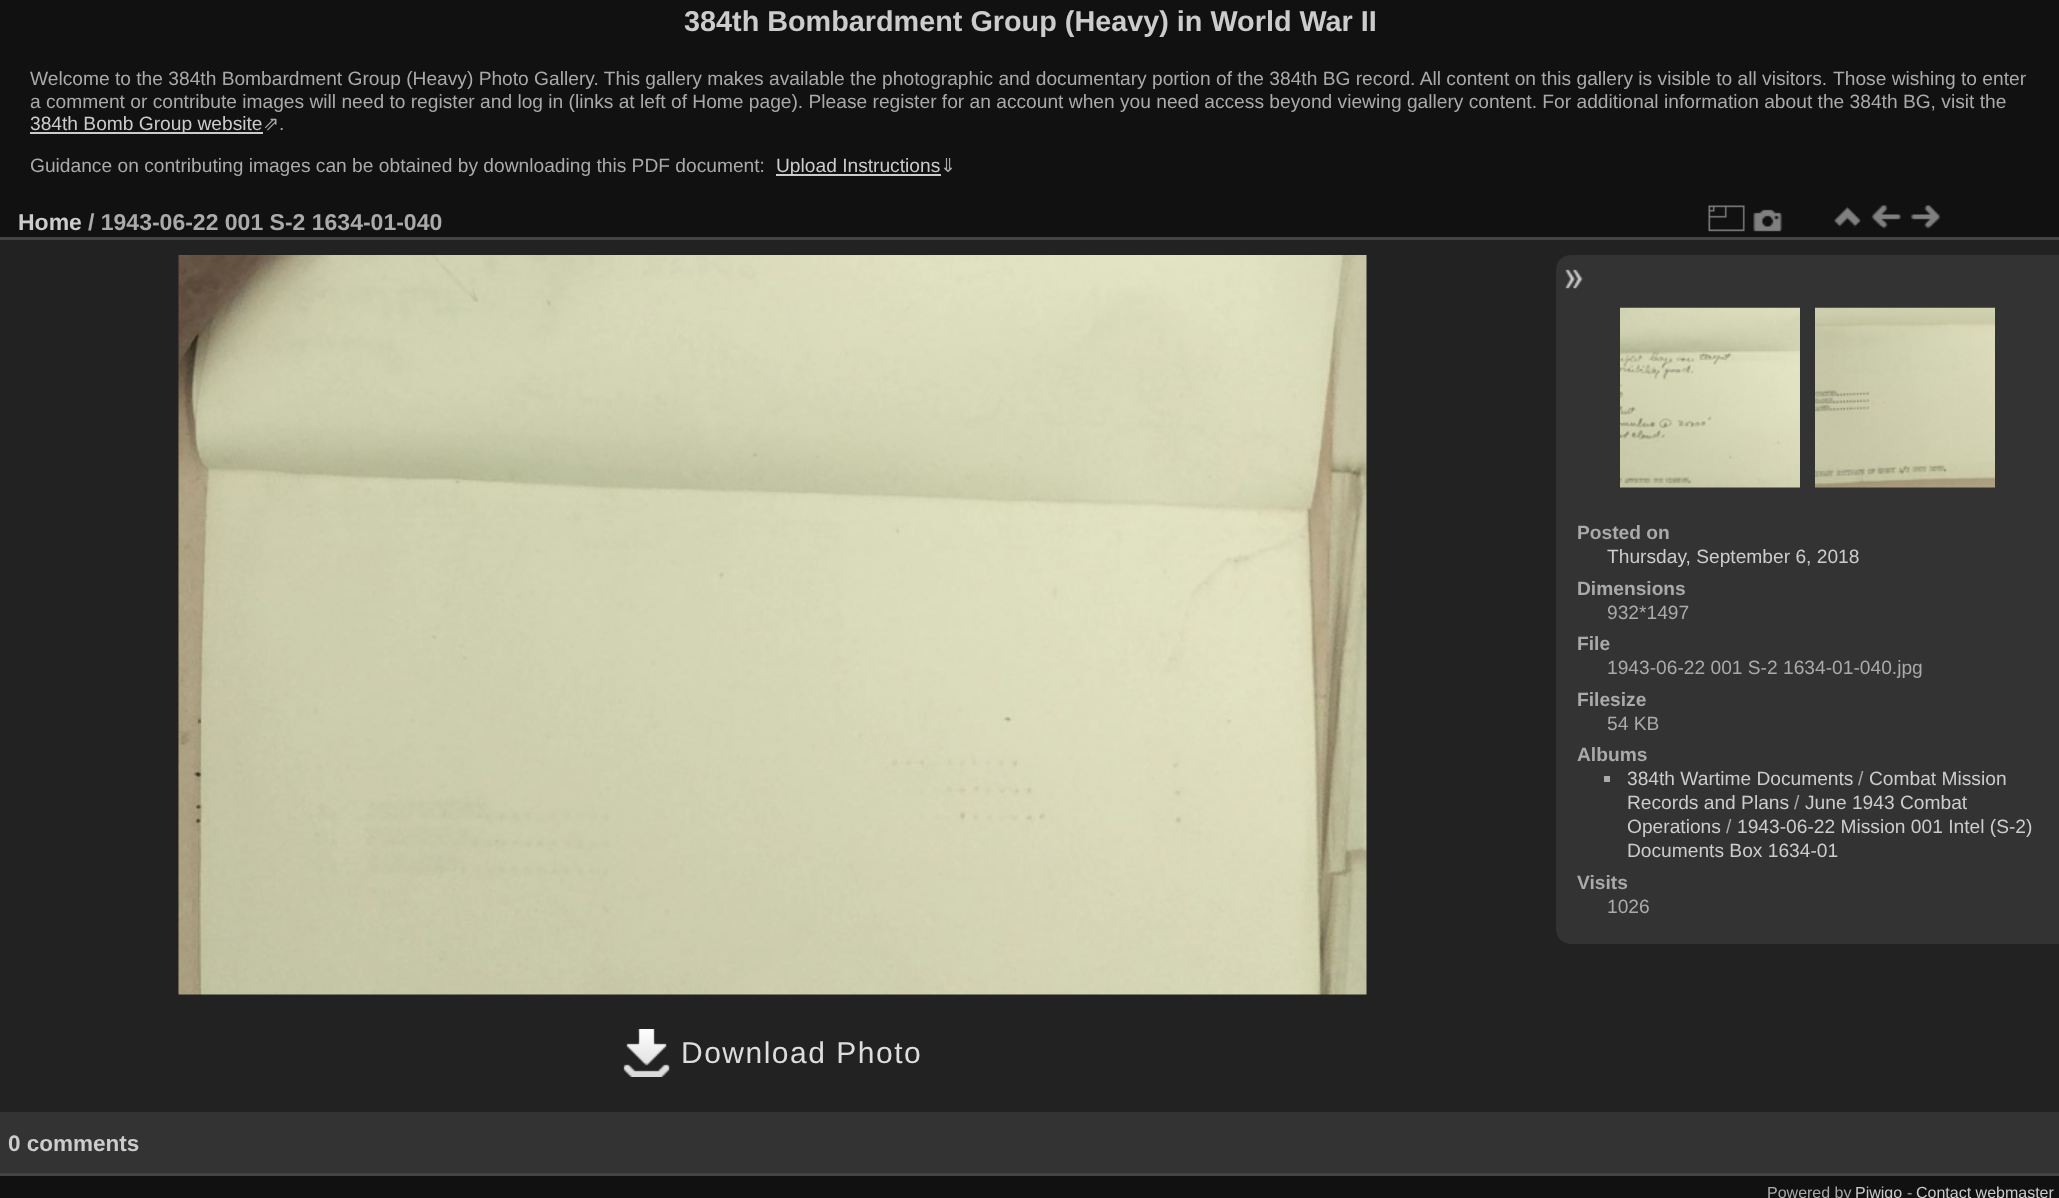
<svg xmlns="http://www.w3.org/2000/svg" width="2059" height="1198" viewBox="0 0 2059 1198">
  <rect width="100%" height="100%" fill="#111"/>
  <path d="M30 132h233v2H30z" fill="#ccc"/>
  <path d="M776 174h165v2H776z" fill="#ccc"/>
  <path d="M0 240h2059v872H0z" fill="#222"/>
  <path d="M0 1173h2059v3H0z" fill="#444"/>
  <path d="M0 237h2059v3H0z" fill="#444"/>
  <image x="1708" y="205" width="37" height="27" href="img/1.png"/>
  <image x="1753" y="209" width="30" height="23" href="img/2.png"/>
  <image x="1834" y="206" width="27" height="21" href="img/3.png"/>
  <image x="1871" y="205" width="30" height="24" href="img/4.png"/>
  <image x="1910" y="205" width="30" height="24" href="img/5.png"/>
  <path d="M1571 255H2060V944H1571C1562.5 944 1556 937.5 1556 929V270C1556 261.5 1562.5 255 1571 255Z" fill="#333"/>
  <image x="1565" y="269" width="18" height="20" href="img/6.png"/>
  <image x="1620" y="307" width="180" height="181" href="img/7.png"/>
  <image x="1815" y="307" width="180" height="181" href="img/8.png"/>
  <path d="M1604 776h6v6H1604z" fill="#aaa"/>
  <image x="178" y="255" width="1189" height="740" href="img/9.png"/>
  <image x="623" y="1029" width="47" height="48" href="img/10.png"/>
  <path d="M0 1112h2059v61H0z" fill="#333"/>
  <text x="684" y="31" font-family="Liberation Sans" font-size="28.8" font-weight="bold" fill="#ccc">384th Bombardment Group (Heavy) in World War II</text>
  <g font-family="Liberation Sans" font-size="19.2" fill="#aaa">
    <text x="30" y="85">Welcome to the 384th Bombardment Group (Heavy) Photo Gallery. This gallery makes available the photographic and documentary portion of the 384th BG record. All content on this gallery is visible to all visitors.</text>
    <text x="1833" y="85">Those wishing to enter</text>
    <text x="30" y="108">a comment or contribute images will need to register and log in (links at left of Home page). Please register for an account when you need access beyond viewing gallery content. For additional information about the 384th BG, visit the</text>
  </g>
  <text x="30" y="130" font-family="Liberation Sans" font-size="19.2" fill="#ccc">384th Bomb Group website</text>
  <text x="263" y="130" font-family="DejaVu Sans" font-size="19.2" fill="#aaa">⇗</text>
  <g font-family="Liberation Sans" font-size="19.2" fill="#aaa">
    <text x="279" y="130">.</text>
    <text x="30" y="172">Guidance on contributing images can be obtained by downloading this PDF document:</text>
  </g>
  <text x="776" y="172" font-family="Liberation Sans" font-size="19.2" fill="#ccc">Upload Instructions</text>
  <text x="940" y="172" font-family="DejaVu Sans" font-size="19.2" fill="#aaa">⇓</text>
  <text x="18" y="230" font-family="Liberation Sans" font-size="23" font-weight="bold" fill="#ccc">Home</text>
  <text x="88" y="230" font-family="Liberation Sans" font-size="23" font-weight="bold" fill="#aaa">/ 1943-06-22 001 S-2 1634-01-040</text>
  <text x="1577" y="539" font-family="Liberation Sans" font-size="19.2" font-weight="bold" fill="#aaa">Posted on</text>
  <text x="1607" y="563" font-family="Liberation Sans" font-size="19.2" fill="#ccc">Thursday, September 6, 2018</text>
  <text x="1577" y="595" font-family="Liberation Sans" font-size="19.2" font-weight="bold" fill="#aaa">Dimensions</text>
  <text x="1607" y="619" font-family="Liberation Sans" font-size="19.2" fill="#aaa">932*1497</text>
  <text x="1577" y="650" font-family="Liberation Sans" font-size="19.2" font-weight="bold" fill="#aaa">File</text>
  <text x="1607" y="674" font-family="Liberation Sans" font-size="19.2" fill="#aaa">1943-06-22 001 S-2 1634-01-040.jpg</text>
  <text x="1577" y="706" font-family="Liberation Sans" font-size="19.2" font-weight="bold" fill="#aaa">Filesize</text>
  <text x="1607" y="730" font-family="Liberation Sans" font-size="19.2" fill="#aaa">54 KB</text>
  <text x="1577" y="761" font-family="Liberation Sans" font-size="19.2" font-weight="bold" fill="#aaa">Albums</text>
  <text x="1627" y="785" font-family="Liberation Sans" font-size="19.2" fill="#ccc">384th Wartime Documents</text>
  <text x="1858" y="785" font-family="Liberation Sans" font-size="19.2" fill="#aaa">/</text>
  <g font-family="Liberation Sans" font-size="19.2" fill="#ccc">
    <text x="1869" y="785">Combat Mission</text>
    <text x="1627" y="809">Records and Plans</text>
  </g>
  <text x="1794" y="809" font-family="Liberation Sans" font-size="19.2" fill="#aaa">/</text>
  <g font-family="Liberation Sans" font-size="19.2" fill="#ccc">
    <text x="1805" y="809">June 1943 Combat</text>
    <text x="1627" y="833">Operations</text>
  </g>
  <text x="1726" y="833" font-family="Liberation Sans" font-size="19.2" fill="#aaa">/</text>
  <g font-family="Liberation Sans" font-size="19.2" fill="#ccc">
    <text x="1737" y="833">1943-06-22 Mission 001 Intel (S-2)</text>
    <text x="1627" y="857">Documents Box 1634-01</text>
  </g>
  <text x="1577" y="889" font-family="Liberation Sans" font-size="19.2" font-weight="bold" fill="#aaa">Visits</text>
  <text x="1607" y="913" font-family="Liberation Sans" font-size="19.2" fill="#aaa">1026</text>
  <text x="681" y="1063" font-family="Liberation Sans" font-size="30" letter-spacing="1.5" fill="#ddd">Download Photo</text>
  <text x="8" y="1151" font-family="Liberation Sans" font-size="22.5" font-weight="bold" fill="#ccc">0 comments</text>
  <text x="1767" y="1198" font-family="Liberation Sans" font-size="16" fill="#aaa">Powered by</text>
  <text x="1855" y="1198" font-family="Liberation Sans" font-size="16" fill="#ccc">Piwigo</text>
  <text x="1907" y="1198" font-family="Liberation Sans" font-size="16" fill="#aaa">-</text>
  <text x="1916" y="1198" font-family="Liberation Sans" font-size="16" fill="#ccc">Contact webmaster</text>
</svg>
